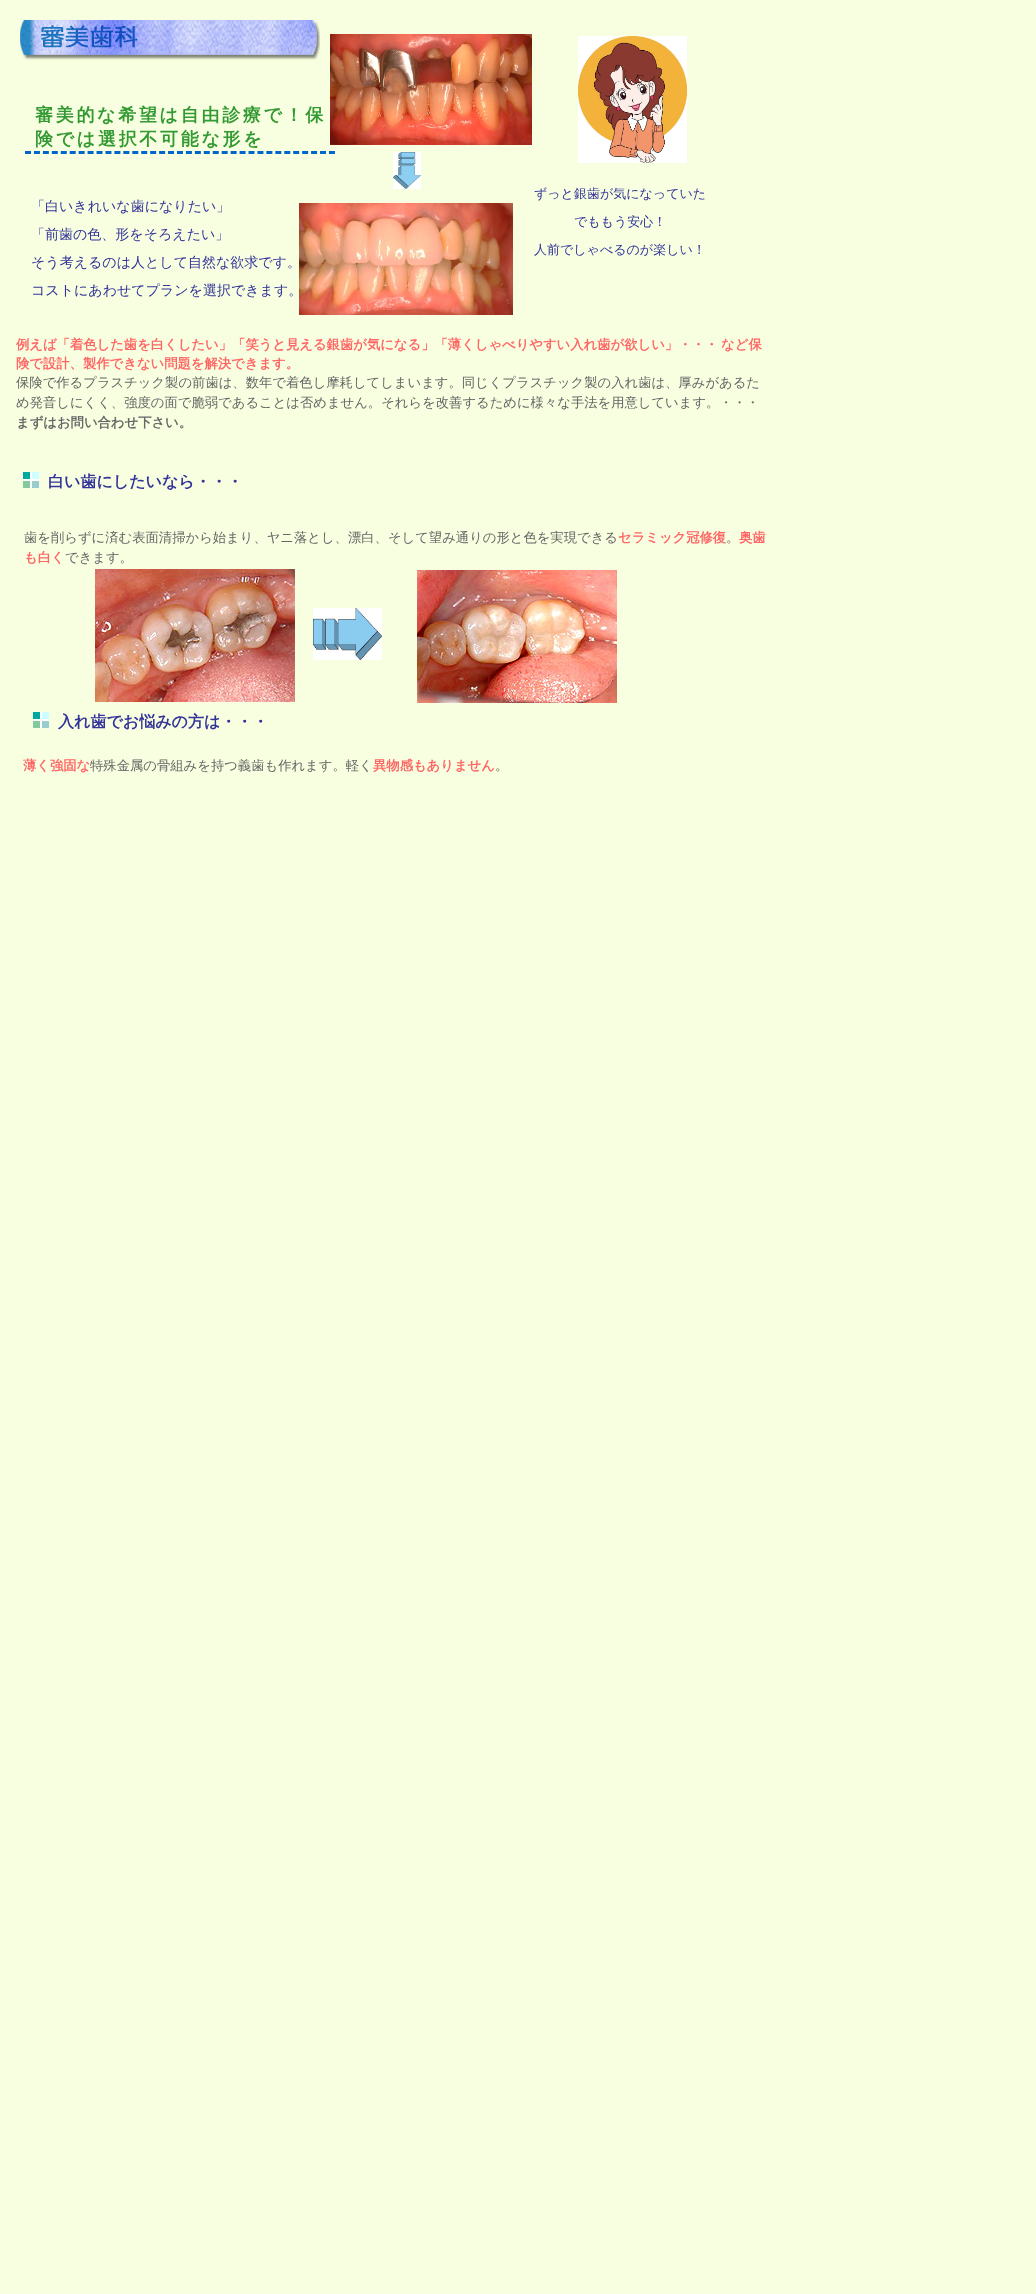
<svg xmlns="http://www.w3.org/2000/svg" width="1036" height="2294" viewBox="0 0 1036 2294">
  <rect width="100%" height="100%" fill="#f8ffe0"/>
  <image x="20" y="20" width="300" height="40" href="img/1.png"/>
  <image x="330" y="34" width="202" height="111" href="img/2.png"/>
  <image x="578" y="36" width="109" height="127" href="img/3.png"/>
  <path d="M25 152.5H335" fill="none" stroke="#06c" stroke-width="3" stroke-dasharray="6 2.94"/>
  <image x="393" y="152" width="28" height="37" href="img/4.png"/>
  <image x="299" y="203" width="214" height="112" href="img/5.png"/>
  <image x="23" y="472" width="16" height="16" href="img/6.png"/>
  <image x="95" y="569" width="200" height="133" href="img/7.png"/>
  <image x="313" y="608" width="69" height="52" href="img/8.png"/>
  <image x="417" y="570" width="200" height="133" href="img/9.png"/>
  <image x="33" y="712" width="16" height="16" href="img/6.png"/>
  <g font-family="WenQuanYi Zen Hei" font-size="18" font-weight="bold" letter-spacing="2.7" fill="#393">
    <text x="35" y="121">審美的な希望は自由診療で！保</text>
    <text x="35" y="145">険では選択不可能な形を</text>
  </g>
  <g font-family="WenQuanYi Zen Hei" font-size="14" font-weight="500" fill="#339">
    <text x="31" y="211">「白いきれいな歯になりたい」</text>
    <text x="31" y="239">「前歯の色、形をそろえたい」</text>
    <text x="31" y="267">そう考えるのは人として自然な欲求です。</text>
    <text x="31" y="295">コストにあわせてプランを選択できます。</text>
  </g>
  <g font-family="WenQuanYi Zen Hei" font-size="13" font-weight="500" fill="#339">
    <text x="534" y="198">ずっと銀歯が気になっていた</text>
    <text x="574" y="226">でももう安心！</text>
    <text x="534" y="254">人前でしゃべるのが楽しい！</text>
  </g>
  <g font-family="WenQuanYi Zen Hei" font-size="13.33" font-weight="bold" fill="#f66">
    <text x="16" y="349" word-spacing="-1">例えば「着色した歯を白くしたい」「笑うと見える銀歯が気になる」「薄くしゃべりやすい入れ歯が欲しい」・・・ など保</text>
    <text x="16" y="368">険で設計、製作できない問題を解決できます。</text>
  </g>
  <g font-family="WenQuanYi Zen Hei" font-size="13.33" font-weight="500" fill="#666">
    <text x="16" y="387">保険で作るプラスチック製の前歯は、数年で着色し摩耗してしまいます。同じくプラスチック製の入れ歯は、厚みがあるた</text>
    <text x="16" y="407">め発音しにくく、強度の面で脆弱であることは否めません。それらを改善するために様々な手法を用意しています。・・・</text>
  </g>
  <text x="16" y="427" font-family="WenQuanYi Zen Hei" font-size="13.33" font-weight="bold" fill="#666">まずはお問い合わせ下さい。</text>
  <text x="48" y="487" font-family="WenQuanYi Zen Hei" font-size="16" font-weight="bold" fill="#339">白い歯にしたいなら・・・</text>
  <text x="24" y="542" font-family="WenQuanYi Zen Hei" font-size="13.33" font-weight="500" fill="#666">歯を削らずに済む表面清掃から始まり、ヤニ落とし、漂白、そして望み通りの形と色を実現できる</text>
  <text x="618" y="542" font-family="WenQuanYi Zen Hei" font-size="13.33" font-weight="bold" fill="#f66">セラミック冠修復</text>
  <text x="726" y="542" font-family="WenQuanYi Zen Hei" font-size="13.33" font-weight="500" fill="#666">。</text>
  <g font-family="WenQuanYi Zen Hei" font-size="13.33" font-weight="bold" fill="#f66">
    <text x="739" y="542">奥歯</text>
    <text x="24" y="562">も白く</text>
  </g>
  <text x="65" y="562" font-family="WenQuanYi Zen Hei" font-size="13.33" font-weight="500" fill="#666">できます。</text>
  <text x="58" y="727" font-family="WenQuanYi Zen Hei" font-size="16" font-weight="bold" fill="#339">入れ歯でお悩みの方は・・・</text>
  <text x="23" y="770" font-family="WenQuanYi Zen Hei" font-size="13.33" font-weight="bold" fill="#f66">薄く強固な</text>
  <text x="90" y="770" font-family="WenQuanYi Zen Hei" font-size="13.33" font-weight="500" fill="#666">特殊金属の骨組みを持つ義歯も作れます。軽く</text>
  <text x="373" y="770" font-family="WenQuanYi Zen Hei" font-size="13.33" font-weight="bold" fill="#f66">異物感もありません</text>
  <text x="495" y="770" font-family="WenQuanYi Zen Hei" font-size="13.33" font-weight="500" fill="#666">。</text>
</svg>
